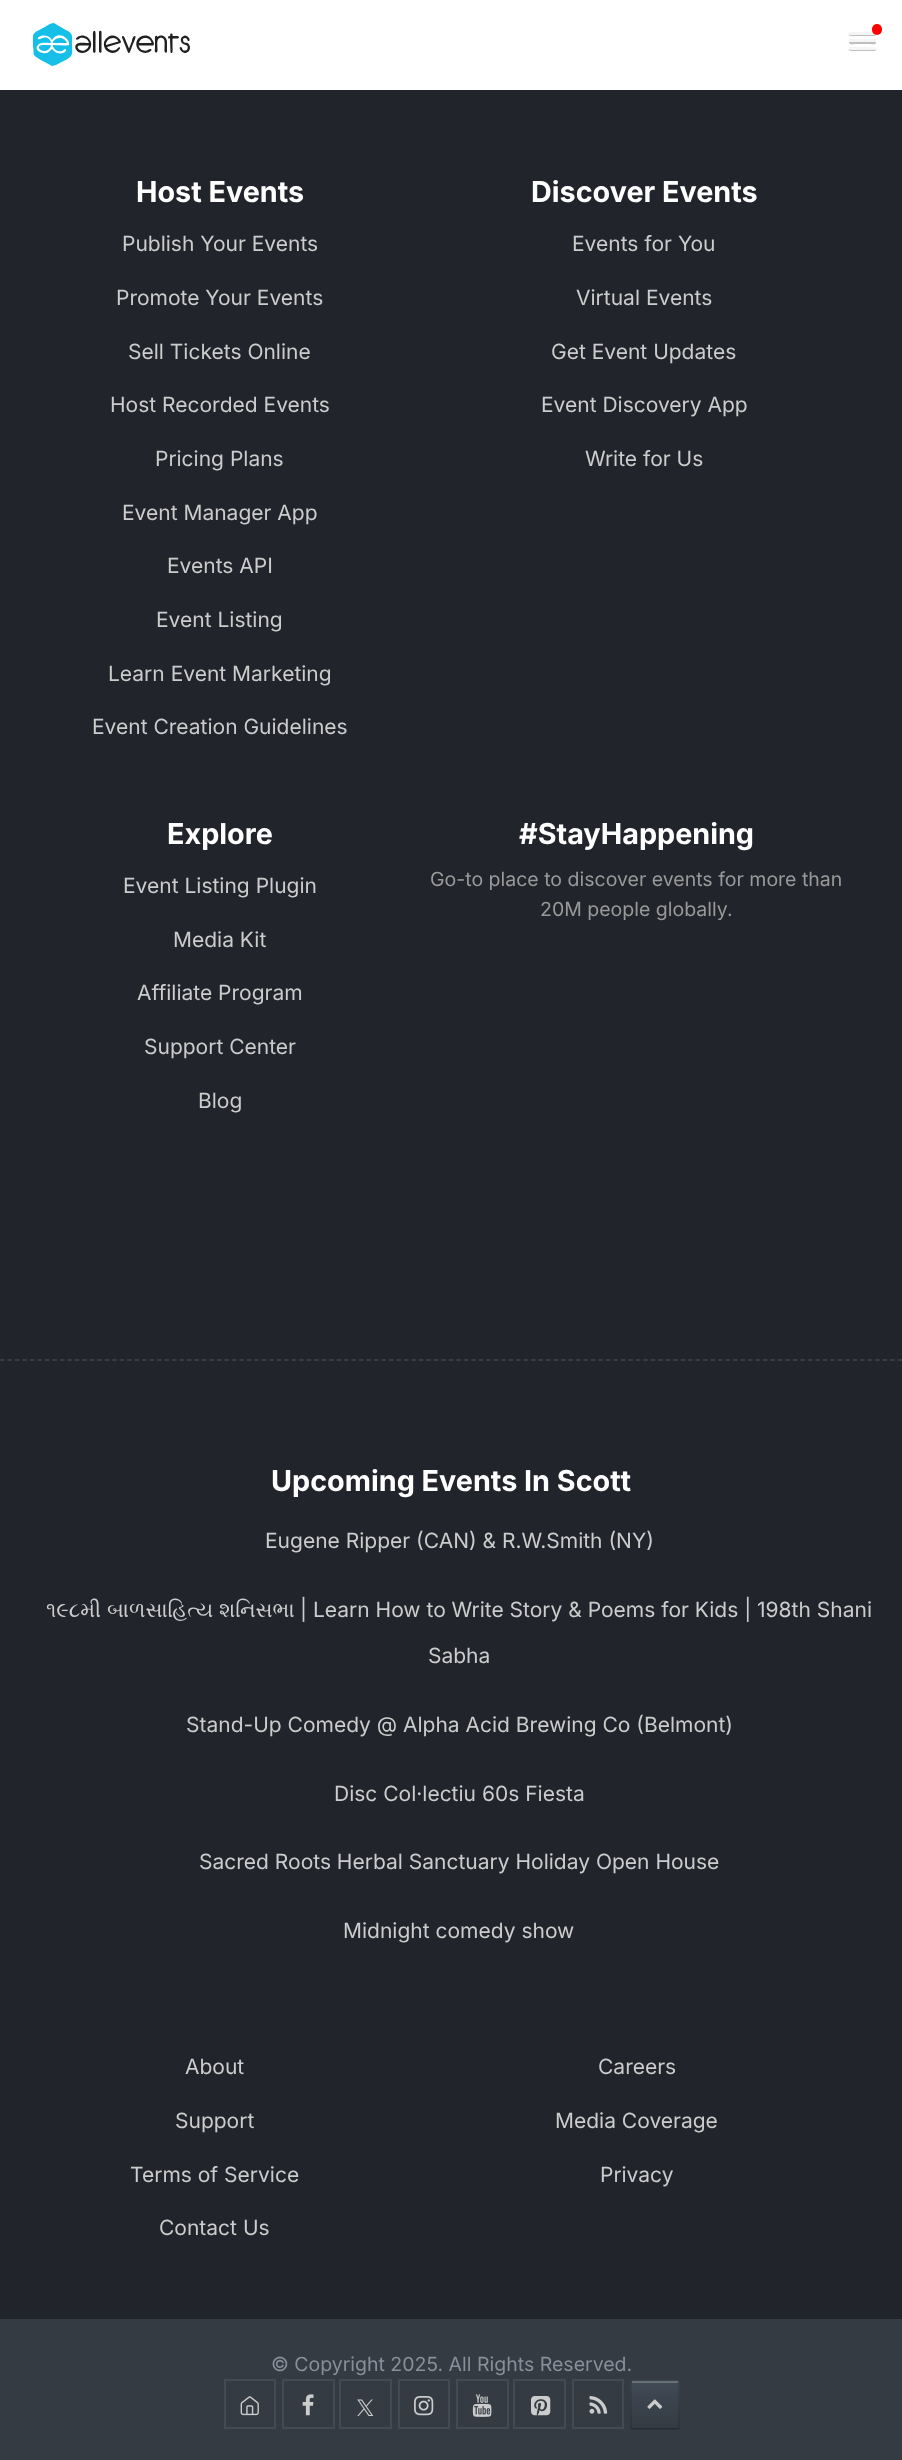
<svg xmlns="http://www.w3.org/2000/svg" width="902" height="2460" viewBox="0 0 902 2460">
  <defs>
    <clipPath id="clip1"><path d="M33 23h158v43H33z"/></clipPath>
    <linearGradient id="g1" gradientUnits="userSpaceOnUse" x1="655" y1="2381" x2="655" y2="2429"><stop offset="0" stop-color="#414b56"/><stop offset="1" stop-color="#333a42"/></linearGradient>
  </defs>
  <rect width="100%" height="100%" fill="#22242b"/>
  <path d="M0 0h902v90H0z" fill="#fff"/>
  <path d="M138.5 45.5C139 47 140 48.5 141 49.5C142.5 50.5 145 51 146.5 50.5C147.5 50.5 151 47.5 151.5 50C151.5 50.5 150.5 51 150 51.5C145.5 54.5 139 52.5 137 47.5C136 45 136 43 137 40.5C139.5 35.5 146.5 34 150.5 37.5C151.5 38 156.5 45.5 152.5 45.5ZM151.5 43H139C140 36.5 150.5 36 151.5 43ZM107 47C108.5 50.5 113.5 51.5 116.5 49.5L118.5 47.5C119.5 47 120.5 47.5 120 48.5L118 51C112 56 102.5 50.5 104 42.5C104.5 40.5 105.5 38.5 107.5 37.5C114.5 31.5 123 41 120.5 43ZM118.5 41.5C115.5 35 105.5 38 106 45Z" fill="#212121" fill-rule="evenodd"/>
  <path d="M87 39.5C85 38 82.5 37.5 80 38C79.5 38.5 76.5 41 76 39C76 38 77 37.5 77.5 37C86.5 31 96 43.5 88.5 50.5C85 54 78.5 54 76 49.5C75.5 48.5 75 47 75.5 45.5C77 42 83.5 43 86.5 43H89C88.5 41.5 88 40.5 87 39.5ZM89 45.5C88.5 47 87.5 48.5 86 49.5C81 53.5 75 47 79 45.5Z" fill="#212121" fill-rule="evenodd"/>
  <path d="M167 41.5V52L166.5 52.5C164 53.5 164.5 49 164.5 48C164.5 45 165.5 38.5 162 38C160.5 37.5 159 38 158 39.5C156 42.5 159 52.5 156.5 52.5C154 53 155 48.5 155 48V42.5C155 38.5 154.5 34.5 157 36L157.5 37C161.5 33.5 166.5 36.5 167 41.5ZM185 35.5C188 35.5 191 40 189 41C187.5 41.5 187.5 39.5 187 39C186 37.5 184 38 183 39V40L183.5 42C184.5 43 186.5 42.5 187.5 43C190.5 45 191 49.5 188 52C187 52.5 186 53 184.5 53C181.5 52.5 178 47.5 180.5 47C182.5 46 181.5 51.5 185.5 50.5C186.5 50.5 187.5 49.5 187.5 48.5C189.5 43.5 181.5 46 181 41C180.5 40 181 38.5 181.5 37.5C182.5 36.5 184 35.5 185 35.5Z" fill="#212121"/>
  <path d="M122 37.5C122 35 124 36 124.5 37.5L129 48.5L132 41C132 40 133 35.5 135 36L135.5 36.5C136 38 132.5 45 132 46.5C130.5 50.5 129.5 54.5 128 52.5ZM172.5 45.5C172.5 46.5 173 52.5 172 53C171.5 53 171 53 170.5 52.5L170 39C170 38 168 39.5 168 37C168 36 170 36.5 170 36C170.5 35.5 169.5 33.5 171.5 33.5C173.5 34 172 36 173 36H177.5C178 36 178.5 36.5 179 37C179 38 178 38.5 177.5 38.5H174C172.5 38.5 172.5 38.5 172.5 40Z" fill="#212121"/>
  <path d="M95.5 42C95.5 41 96 32 95 31H94C92.5 31 93 36.5 93 37V51.5C93.5 53.5 95.5 53 95.5 51.5ZM101.5 42V31.5C100.5 30 99 31 99 32V51.5C99 52.5 101 53.5 101.5 52Z" fill="#212121"/>
  <g clip-path="url(#clip1)">
    <path d="M54 23L64 29C74 34 72 34 72 45C72 48 73 53 71 56C69 59 59 63 56 65L52 66L50 65C47 63 36 58 34 55C33 53 34 48 33 47C33 33 31 34 43 28C47 26 50 23 54 23ZM52 40C59 29 71 40 69 45C68 46 55 45 53 45V46C54 50 58 52 62 51L65 49C67 49 66 52 63 53C60 54 56 53 54 51L52 49C50 50 50 52 47 53C42 54 33 50 38 45C40 42 46 43 49 43C52 43 51 43 50 40C45 34 39 41 38 39C36 37 47 32 52 40ZM60 43H66H67C66 40 63 38 60 38C54 38 52 43 53 43ZM46 45H43C36 45 39 51 44 51C47 51 50 49 51 46L50 45Z" fill="#15bfe7" fill-rule="evenodd"/>
  </g>
  <path d="M849 33.5C847.5 37 854.5 36 854.5 36H870.5C870.5 36 877.5 37 876 33.5C875.5 34 875 34.5 874.5 34.5H850.5C850 34.5 849.5 34 849 33.5Z" fill="#bfbfbf"/>
  <rect x="849" y="32" width="27" height="3" rx="1.5" fill="#f5f5f5"/>
  <rect x="872" y="24" width="10" height="11" rx="5" fill="#f00"/>
  <path d="M849.5 41.5L849 43C849.5 45 854 44 854.5 44H870.5C871 44 875.5 45 876 43L875.5 41.5L874.5 42H850.5Z" fill="#bfbfbf"/>
  <rect x="849" y="39" width="27" height="3" rx="1.5" fill="#f5f5f5"/>
  <path d="M849 48.5C847.5 52 854.5 51 854.5 51H870.5C870.5 51 877.5 52 876 48.5C875.5 49 875 49.5 874.5 49.5H850.5C850 49.5 849.5 49 849 48.5Z" fill="#bfbfbf"/>
  <rect x="849" y="47" width="27" height="3" rx="1.5" fill="#f5f5f5"/>
  <path d="M0 1360H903" fill="none" stroke="#444" stroke-width="1.5" stroke-dasharray="4.5 2.98"/>
  <path d="M0 2319h902v141H0z" fill="#343b43"/>
  <path d="M225 2380h50v48H225z" fill="none" stroke="#404b55" stroke-width="2"/>
  <image x="240" y="2396" width="19" height="20" href="img/1.png"/>
  <path d="M283 2380h51v48H283z" fill="none" stroke="#404b55" stroke-width="2"/>
  <image x="302" y="2394" width="12" height="22" href="img/2.png"/>
  <path d="M340 2380h51v48H340z" fill="none" stroke="#404b55" stroke-width="2"/>
  <image x="357" y="2399" width="17" height="17" href="img/3.png"/>
  <path d="M399 2380h50v48H399z" fill="none" stroke="#404b55" stroke-width="2"/>
  <image x="414" y="2396" width="20" height="20" href="img/4.png"/>
  <path d="M457 2380h51v48H457z" fill="none" stroke="#404b55" stroke-width="2"/>
  <image x="472" y="2394" width="20" height="23" href="img/5.png"/>
  <path d="M514 2380h51v48H514z" fill="none" stroke="#404b55" stroke-width="2"/>
  <image x="531" y="2396" width="20" height="20" href="img/6.png"/>
  <path d="M573 2380h50v48H573z" fill="none" stroke="#404b55" stroke-width="2"/>
  <image x="589" y="2396" width="19" height="18" href="img/7.png"/>
  <path d="M630 2379h50v51H630z" fill="#3b444e"/>
  <path d="M630 2381h50v48H630z" fill="url(#g1)"/>
  <path d="M632 2381h46v2H632z" fill="#676f77"/>
  <path d="M630 2379H680L678 2380H632Z" fill="#353d46"/>
  <path d="M680 2379V2430L678 2428V2380Z" fill="#0000001a"/>
  <path d="M680 2430H630L632 2428H678Z" fill="#00000040"/>
  <path d="M630 2430V2379L632 2380V2428Z" fill="#0000001a"/>
  <image x="647" y="2399" width="16" height="10" href="img/8.png"/>
  <text x="136" y="202" font-family="Inter" font-size="28.75" font-weight="bold" fill="#fff">Host Events</text>
  <g font-family="Inter" font-size="21" fill="#ccc">
    <text x="122" y="251">Publish Your Events</text>
    <text x="116" y="305">Promote Your Events</text>
    <text x="128" y="359">Sell Tickets Online</text>
    <text x="110" y="412">Host Recorded Events</text>
    <text x="155" y="466">Pricing Plans</text>
    <text x="122" y="520">Event Manager App</text>
    <text x="167" y="573">Events API</text>
    <text x="156" y="627">Event Listing</text>
    <text x="108" y="681">Learn Event Marketing</text>
    <text x="92" y="734">Event Creation Guidelines</text>
  </g>
  <text x="531" y="202" font-family="Inter" font-size="28.75" font-weight="bold" fill="#fff">Discover Events</text>
  <g font-family="Inter" font-size="21" fill="#ccc">
    <text x="572" y="251">Events for You</text>
    <text x="576" y="305">Virtual Events</text>
    <text x="551" y="359">Get Event Updates</text>
    <text x="541" y="412">Event Discovery App</text>
    <text x="585" y="466">Write for Us</text>
  </g>
  <text x="167" y="844" font-family="Inter" font-size="28.75" font-weight="bold" fill="#fff">Explore</text>
  <g font-family="Inter" font-size="21" fill="#ccc">
    <text x="123" y="893">Event Listing Plugin</text>
    <text x="173" y="947">Media Kit</text>
    <text x="137" y="1000">Affiliate Program</text>
    <text x="144" y="1054">Support Center</text>
    <text x="198" y="1108">Blog</text>
  </g>
  <text x="519" y="844" font-family="Inter" font-size="28.75" font-weight="bold" fill="#fff">#StayHappening</text>
  <g font-family="Inter" font-size="19.5" fill="#999">
    <text x="430" y="886">Go-to place to discover events for more than</text>
    <text x="540" y="916">20M people globally.</text>
  </g>
  <text x="271" y="1491" font-family="Inter" font-size="28.75" font-weight="bold" fill="#fff">Upcoming Events In Scott</text>
  <text x="265" y="1548" font-family="Inter" font-size="21" fill="#ccc">Eugene Ripper (CAN) &amp; R.W.Smith (NY)</text>
  <g font-family="FreeSerif" font-size="21" fill="#ccc">
    <text x="46" y="1617">૧૯૮મી</text>
    <text x="107" y="1617">બાળસાહિત્ય</text>
    <text x="219" y="1617">શનિસભા</text>
  </g>
  <g font-family="Inter" font-size="21" fill="#ccc">
    <text x="300" y="1617">| Learn How to Write Story &amp; Poems for Kids | 198th Shani</text>
    <text x="428" y="1663">Sabha</text>
    <text x="186" y="1732">Stand-Up Comedy @ Alpha Acid Brewing Co (Belmont)</text>
    <text x="334" y="1801">Disc Col·lectiu 60s Fiesta</text>
    <text x="199" y="1869">Sacred Roots Herbal Sanctuary Holiday Open House</text>
    <text x="343" y="1938">Midnight comedy show</text>
    <text x="185" y="2074">About</text>
    <text x="598" y="2074">Careers</text>
    <text x="175" y="2128">Support</text>
    <text x="555" y="2128">Media Coverage</text>
    <text x="130" y="2182">Terms of Service</text>
    <text x="600" y="2182">Privacy</text>
    <text x="159" y="2235">Contact Us</text>
  </g>
  <text x="271" y="2371" font-family="Inter" font-size="19.5" fill="#87909a">© Copyright 2025. All Rights Reserved.</text>
</svg>
